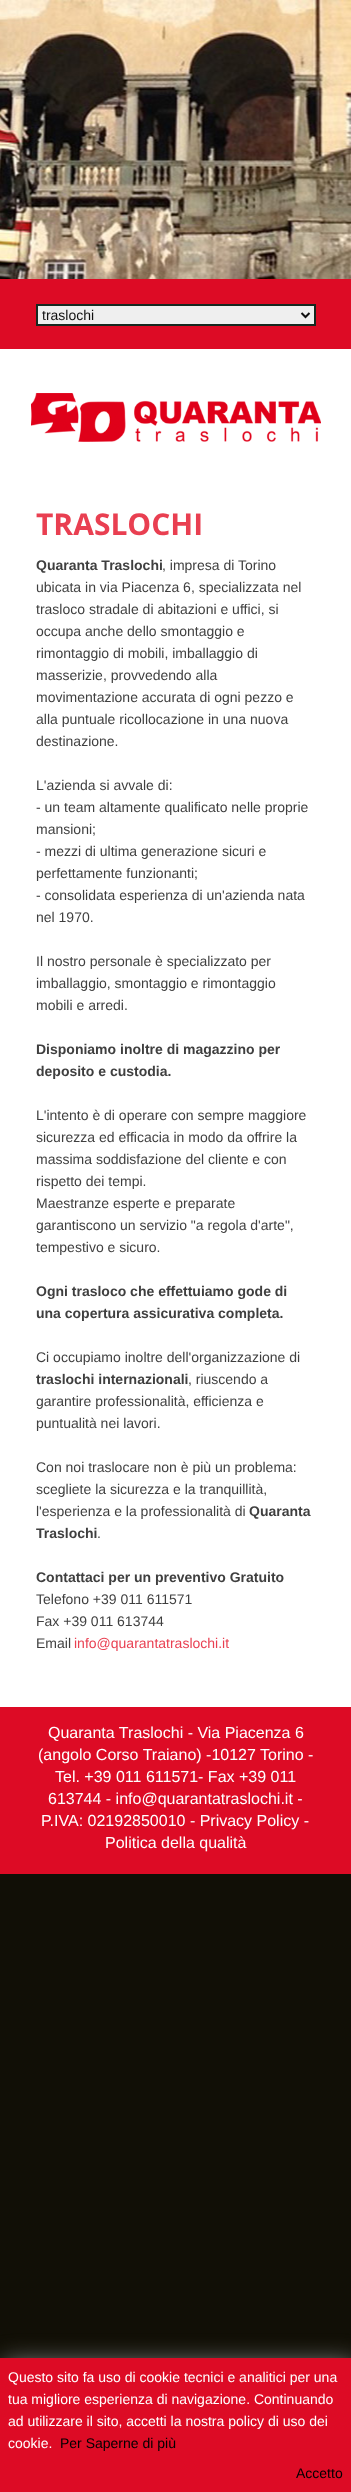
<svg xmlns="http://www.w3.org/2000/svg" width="351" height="2492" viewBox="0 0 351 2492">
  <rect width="100%" height="100%" fill="#110f06"/>
  <path d="M0 349h351v1358H0z" fill="#fff"/>
  <image x="0" y="0" width="351" height="279" href="img/1.png"/>
  <path d="M0 279h351v70H0z" fill="#dd0b25"/>
  <path d="M37 305h278v20H37z" fill="#efefef" stroke="#16281f" stroke-width="2"/>
  <path d="M301.5 313L305.5 317L309.5 313" fill="none" stroke="#101010" stroke-width="2"/>
  <image x="31" y="393" width="290" height="49" href="img/2.png"/>
  <path d="M0 1707h351v167H0z" fill="#dd0b25"/>
  <path d="M4 2362h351v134H4z" fill="#888" filter="blur(12.5px)"/>
  <path d="M0 2358h351v134H0z" fill="#dd0b25"/>
  <text x="42" y="320" font-family="Liberation Sans" font-size="14" fill="#101010">traslochi</text>
  <text x="36" y="535" font-family="Open Sans" font-size="30" font-weight="bold" fill="#e93f51">TRASLOCHI</text>
  <text x="36" y="570" font-family="Liberation Sans" font-size="14" font-weight="bold" fill="#3f3f3f">Quaranta Traslochi</text>
  <g font-family="Liberation Sans" font-size="14" fill="#3f3f3f">
    <text x="162" y="570">, impresa di Torino</text>
    <text x="36" y="592">ubicata in via Piacenza 6, specializzata nel</text>
    <text x="36" y="614">trasloco stradale di abitazioni e uffici, si</text>
    <text x="36" y="636">occupa anche dello smontaggio e</text>
    <text x="36" y="658">rimontaggio di mobili, imballaggio di</text>
    <text x="36" y="680">masserizie, provvedendo alla</text>
    <text x="36" y="702">movimentazione accurata di ogni pezzo e</text>
    <text x="36" y="724">alla puntuale ricollocazione in una nuova</text>
    <text x="36" y="746">destinazione.</text>
    <text x="36" y="790">L'azienda si avvale di:</text>
    <text x="36" y="812">- un team altamente qualificato nelle proprie</text>
    <text x="36" y="834">mansioni;</text>
    <text x="36" y="856">- mezzi di ultima generazione sicuri e</text>
    <text x="36" y="878">perfettamente funzionanti;</text>
    <text x="36" y="900">- consolidata esperienza di un'azienda nata</text>
    <text x="36" y="922">nel 1970.</text>
    <text x="36" y="966">Il nostro personale è specializzato per</text>
    <text x="36" y="988">imballaggio, smontaggio e rimontaggio</text>
    <text x="36" y="1010">mobili e arredi.</text>
  </g>
  <g font-family="Liberation Sans" font-size="14" font-weight="bold" fill="#3f3f3f">
    <text x="36" y="1054">Disponiamo inoltre di magazzino per</text>
    <text x="36" y="1076">deposito e custodia.</text>
  </g>
  <g font-family="Liberation Sans" font-size="14" fill="#3f3f3f">
    <text x="36" y="1120">L'intento è di operare con sempre maggiore</text>
    <text x="36" y="1142">sicurezza ed efficacia in modo da offrire la</text>
    <text x="36" y="1164">massima soddisfazione del cliente e con</text>
    <text x="36" y="1186">rispetto dei tempi.</text>
    <text x="36" y="1208">Maestranze esperte e preparate</text>
    <text x="36" y="1230">garantiscono un servizio "a regola d'arte",</text>
    <text x="36" y="1252">tempestivo e sicuro.</text>
  </g>
  <g font-family="Liberation Sans" font-size="14" font-weight="bold" fill="#3f3f3f">
    <text x="36" y="1296">Ogni trasloco che effettuiamo gode di</text>
    <text x="36" y="1318">una copertura assicurativa completa.</text>
  </g>
  <text x="36" y="1362" font-family="Liberation Sans" font-size="14" fill="#3f3f3f">Ci occupiamo inoltre dell'organizzazione di</text>
  <text x="36" y="1384" font-family="Liberation Sans" font-size="14" font-weight="bold" fill="#3f3f3f">traslochi internazionali</text>
  <g font-family="Liberation Sans" font-size="14" fill="#3f3f3f">
    <text x="188" y="1384">, riuscendo a</text>
    <text x="36" y="1406">garantire professionalità, efficienza e</text>
    <text x="36" y="1428">puntualità nei lavori.</text>
    <text x="36" y="1472">Con noi traslocare non è più un problema:</text>
    <text x="36" y="1494">scegliete la sicurezza e la tranquillità,</text>
    <text x="36" y="1516">l'esperienza e la professionalità di</text>
  </g>
  <g font-family="Liberation Sans" font-size="14" font-weight="bold" fill="#3f3f3f">
    <text x="249" y="1516">Quaranta</text>
    <text x="36" y="1538">Traslochi</text>
  </g>
  <text x="97" y="1538" font-family="Liberation Sans" font-size="14" fill="#3f3f3f">.</text>
  <text x="36" y="1582" font-family="Liberation Sans" font-size="14" font-weight="bold" fill="#3f3f3f">Contattaci per un preventivo Gratuito</text>
  <g font-family="Liberation Sans" font-size="14" fill="#3f3f3f">
    <text x="36" y="1604">Telefono +39 011 611571</text>
    <text x="36" y="1626">Fax +39 011 613744</text>
    <text x="36" y="1648">Email</text>
  </g>
  <text x="74" y="1648" font-family="Liberation Sans" font-size="14" fill="#e93f51">info@quarantatraslochi.it</text>
  <g font-family="Liberation Sans" font-size="16" fill="#fff">
    <text x="48" y="1738">Quaranta Traslochi - Via Piacenza 6</text>
    <text x="38" y="1760">(angolo Corso Traiano) -10127 Torino -</text>
    <text x="55" y="1782">Tel. +39 011 611571- Fax +39 011</text>
    <text x="48" y="1804">613744 - info@quarantatraslochi.it -</text>
    <text x="41" y="1826">P.IVA: 02192850010 - Privacy Policy -</text>
    <text x="105" y="1848">Politica della qualità</text>
  </g>
  <g font-family="Liberation Sans" font-size="14" fill="#fff">
    <text x="8" y="2382">Questo sito fa uso di cookie tecnici e analitici per una</text>
    <text x="8" y="2404">tua migliore esperienza di navigazione. Continuando</text>
    <text x="8" y="2426">ad utilizzare il sito, accetti la nostra policy di uso dei</text>
    <text x="8" y="2448">cookie.</text>
  </g>
  <g font-family="Liberation Sans" font-size="14" fill="#000">
    <text x="60" y="2448">Per Saperne di più</text>
    <text x="296" y="2478">Accetto</text>
  </g>
</svg>
